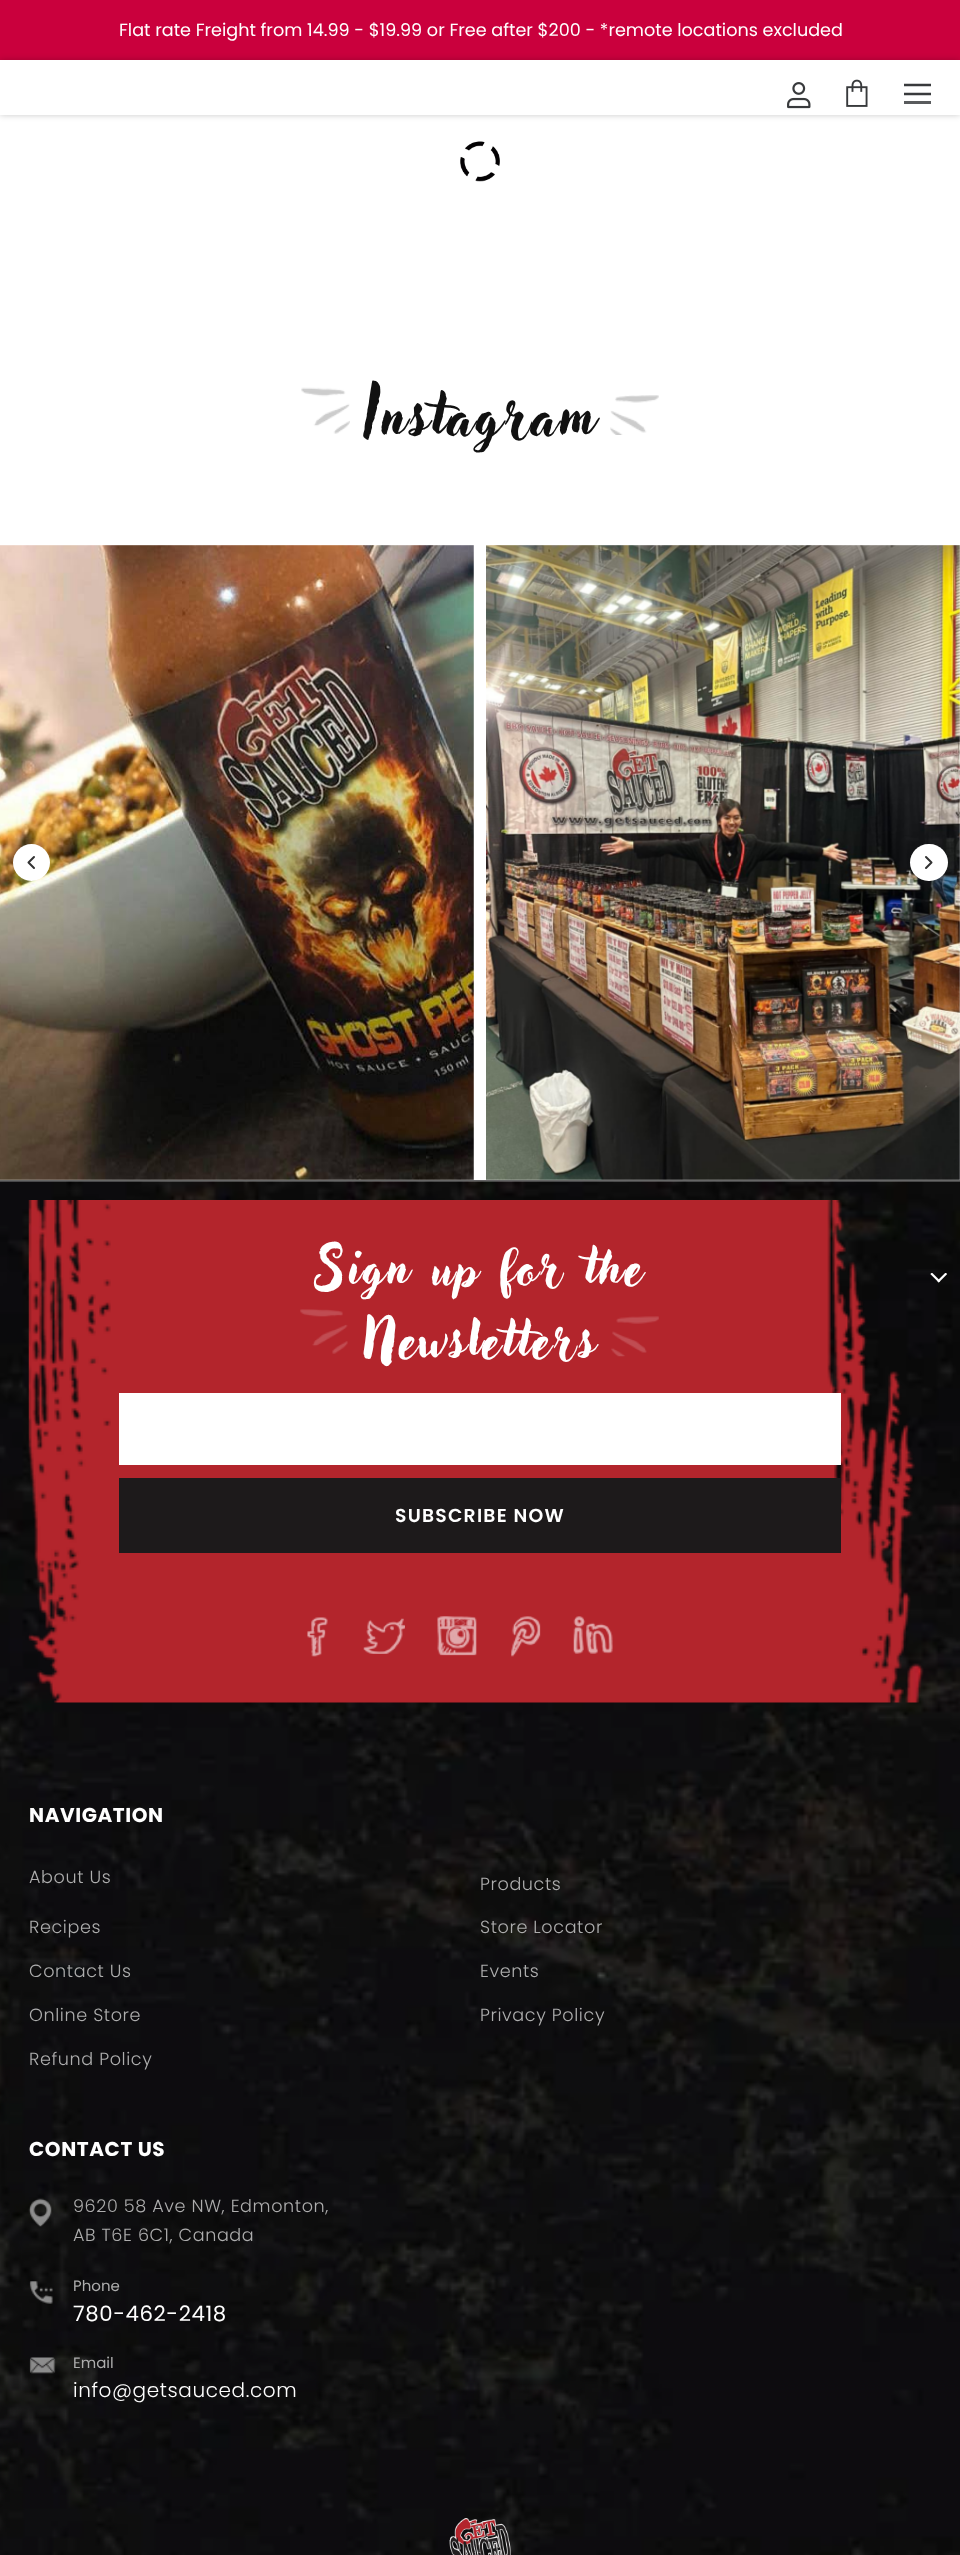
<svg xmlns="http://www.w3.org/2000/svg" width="960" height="2555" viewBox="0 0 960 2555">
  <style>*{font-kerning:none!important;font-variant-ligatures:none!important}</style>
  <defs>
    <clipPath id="clip1"><path d="M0 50H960V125H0ZM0 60H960V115H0Z" clip-rule="evenodd"/></clipPath>
    <clipPath id="clip2"><path d="M904 83h27v22H904z"/></clipPath>
  </defs>
  <rect width="100%" height="100%" fill="#fff"/>
  <path d="M0 0h960v60H0z" fill="#ca003d"/>
  <g clip-path="url(#clip1)">
    <path d="M0 60h960v55H0z" fill="#00000036" filter="blur(3px)"/>
  </g>
  <image x="787" y="82" width="24" height="27" href="img/1.png"/>
  <image x="846" y="79" width="22" height="28" href="img/2.png"/>
  <g clip-path="url(#clip2)">
    <path d="M930 85H905M930 94H905" fill="none" stroke="#383a3c" stroke-width="2.5" stroke-linecap="square" stroke-linejoin="round"/>
  </g>
  <path d="M904 101h27v3H904z" fill="#595b5d"/>
  <image x="460" y="141" width="40" height="41" href="img/3.png"/>
  <image x="301" y="387" width="49" height="47" href="img/4.png"/>
  <image x="610" y="395" width="49" height="40" href="img/5.png"/>
  <image x="0" y="545" width="474" height="635" href="img/6.png"/>
  <image x="486" y="545" width="474" height="635" href="img/7.png"/>
  <circle cx="31.5" cy="862.5" r="18.5" fill="#fff"/>
  <path d="M34 868L28.5 862.5L34 857" fill="none" stroke="#333" stroke-width="2" stroke-linecap="round" stroke-linejoin="round"/>
  <rect x="910" y="844" width="38" height="37" rx="18.5" fill="#fff"/>
  <path d="M926 857L931.5 862.5L926 868" fill="none" stroke="#333" stroke-width="2" stroke-linecap="round" stroke-linejoin="round"/>
  <image x="0" y="1181" width="960" height="1374" href="img/8.png"/>
  <path d="M0 1180h960v1H0z" fill="#666"/>
  <image x="28" y="1200" width="896" height="503" href="img/9.png"/>
  <image x="300" y="1309" width="48" height="45" href="img/10.png"/>
  <image x="611" y="1316" width="48" height="41" href="img/11.png"/>
  <path d="M119 1393h722v72H119z" fill="#fff"/>
  <path d="M119 1478h722v75H119z" fill="#1d1a1b"/>
  <image x="307" y="1617" width="21" height="40" href="img/12.png"/>
  <image x="363" y="1618" width="42" height="36" href="img/13.png"/>
  <image x="437" y="1616" width="40" height="40" href="img/14.png"/>
  <image x="511" y="1616" width="30" height="41" href="img/15.png"/>
  <image x="573" y="1616" width="40" height="38" href="img/16.png"/>
  <image x="930" y="1273" width="18" height="10" href="img/17.png"/>
  <image x="28" y="2198" width="24" height="29" href="img/18.png"/>
  <image x="29" y="2281" width="24" height="23" href="img/19.png"/>
  <image x="29" y="2357" width="27" height="17" href="img/20.png"/>
  <image x="449" y="2518" width="62" height="37" href="img/21.png"/>
  <text x="119" y="36" font-family="Poppins" font-size="17.6" fill="#fff">Flat rate Freight from 14.99 - $19.99 or Free after $200 - *remote locations excluded</text>
  <text x="364" y="435" font-family="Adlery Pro" font-size="57.5" letter-spacing="2.5" fill="#111">Instagram</text>
  <g font-family="Adlery Pro" font-size="50" letter-spacing="2.5" fill="#fff">
    <text x="316" y="1284">Sign up for the</text>
    <text x="363" y="1357">Newsletters</text>
  </g>
  <text x="395" y="1522" font-family="Poppins" font-size="18.75" font-weight="600" letter-spacing="1.25" fill="#fff">SUBSCRIBE NOW</text>
  <text x="29" y="1822" font-family="Poppins" font-size="20" font-weight="bold" letter-spacing="0.6" fill="#fff">NAVIGATION</text>
  <g font-family="Poppins" font-size="17.6" font-weight="300" letter-spacing="0.6" fill="#adadad">
    <text x="29" y="1883">About Us</text>
    <text x="480" y="1890">Products</text>
    <text x="29" y="1933">Recipes</text>
    <text x="480" y="1933">Store Locator</text>
    <text x="29" y="1977">Contact Us</text>
    <text x="480" y="1977">Events</text>
    <text x="29" y="2021">Online Store</text>
    <text x="480" y="2021">Privacy Policy</text>
    <text x="29" y="2065">Refund Policy</text>
  </g>
  <text x="29" y="2156" font-family="Poppins" font-size="20" font-weight="bold" letter-spacing="0.6" fill="#fff">CONTACT US</text>
  <g font-family="Poppins" font-size="17.6" font-weight="300" letter-spacing="0.6" fill="#adadad">
    <text x="73" y="2212">9620 58 Ave NW, Edmonton,</text>
    <text x="73" y="2241">AB T6E 6C1, Canada</text>
  </g>
  <text x="73" y="2291" font-family="Poppins" font-size="15" fill="#adadad">Phone</text>
  <text x="73" y="2321" font-family="Poppins" font-size="21.25" letter-spacing="0.6" fill="#fff">780-462-2418</text>
  <text x="73" y="2368" font-family="Poppins" font-size="15" fill="#adadad">Email</text>
  <text x="73" y="2397" font-family="Poppins" font-size="20" font-weight="300" letter-spacing="0.6" fill="#fff">info@getsauced.com</text>
</svg>
